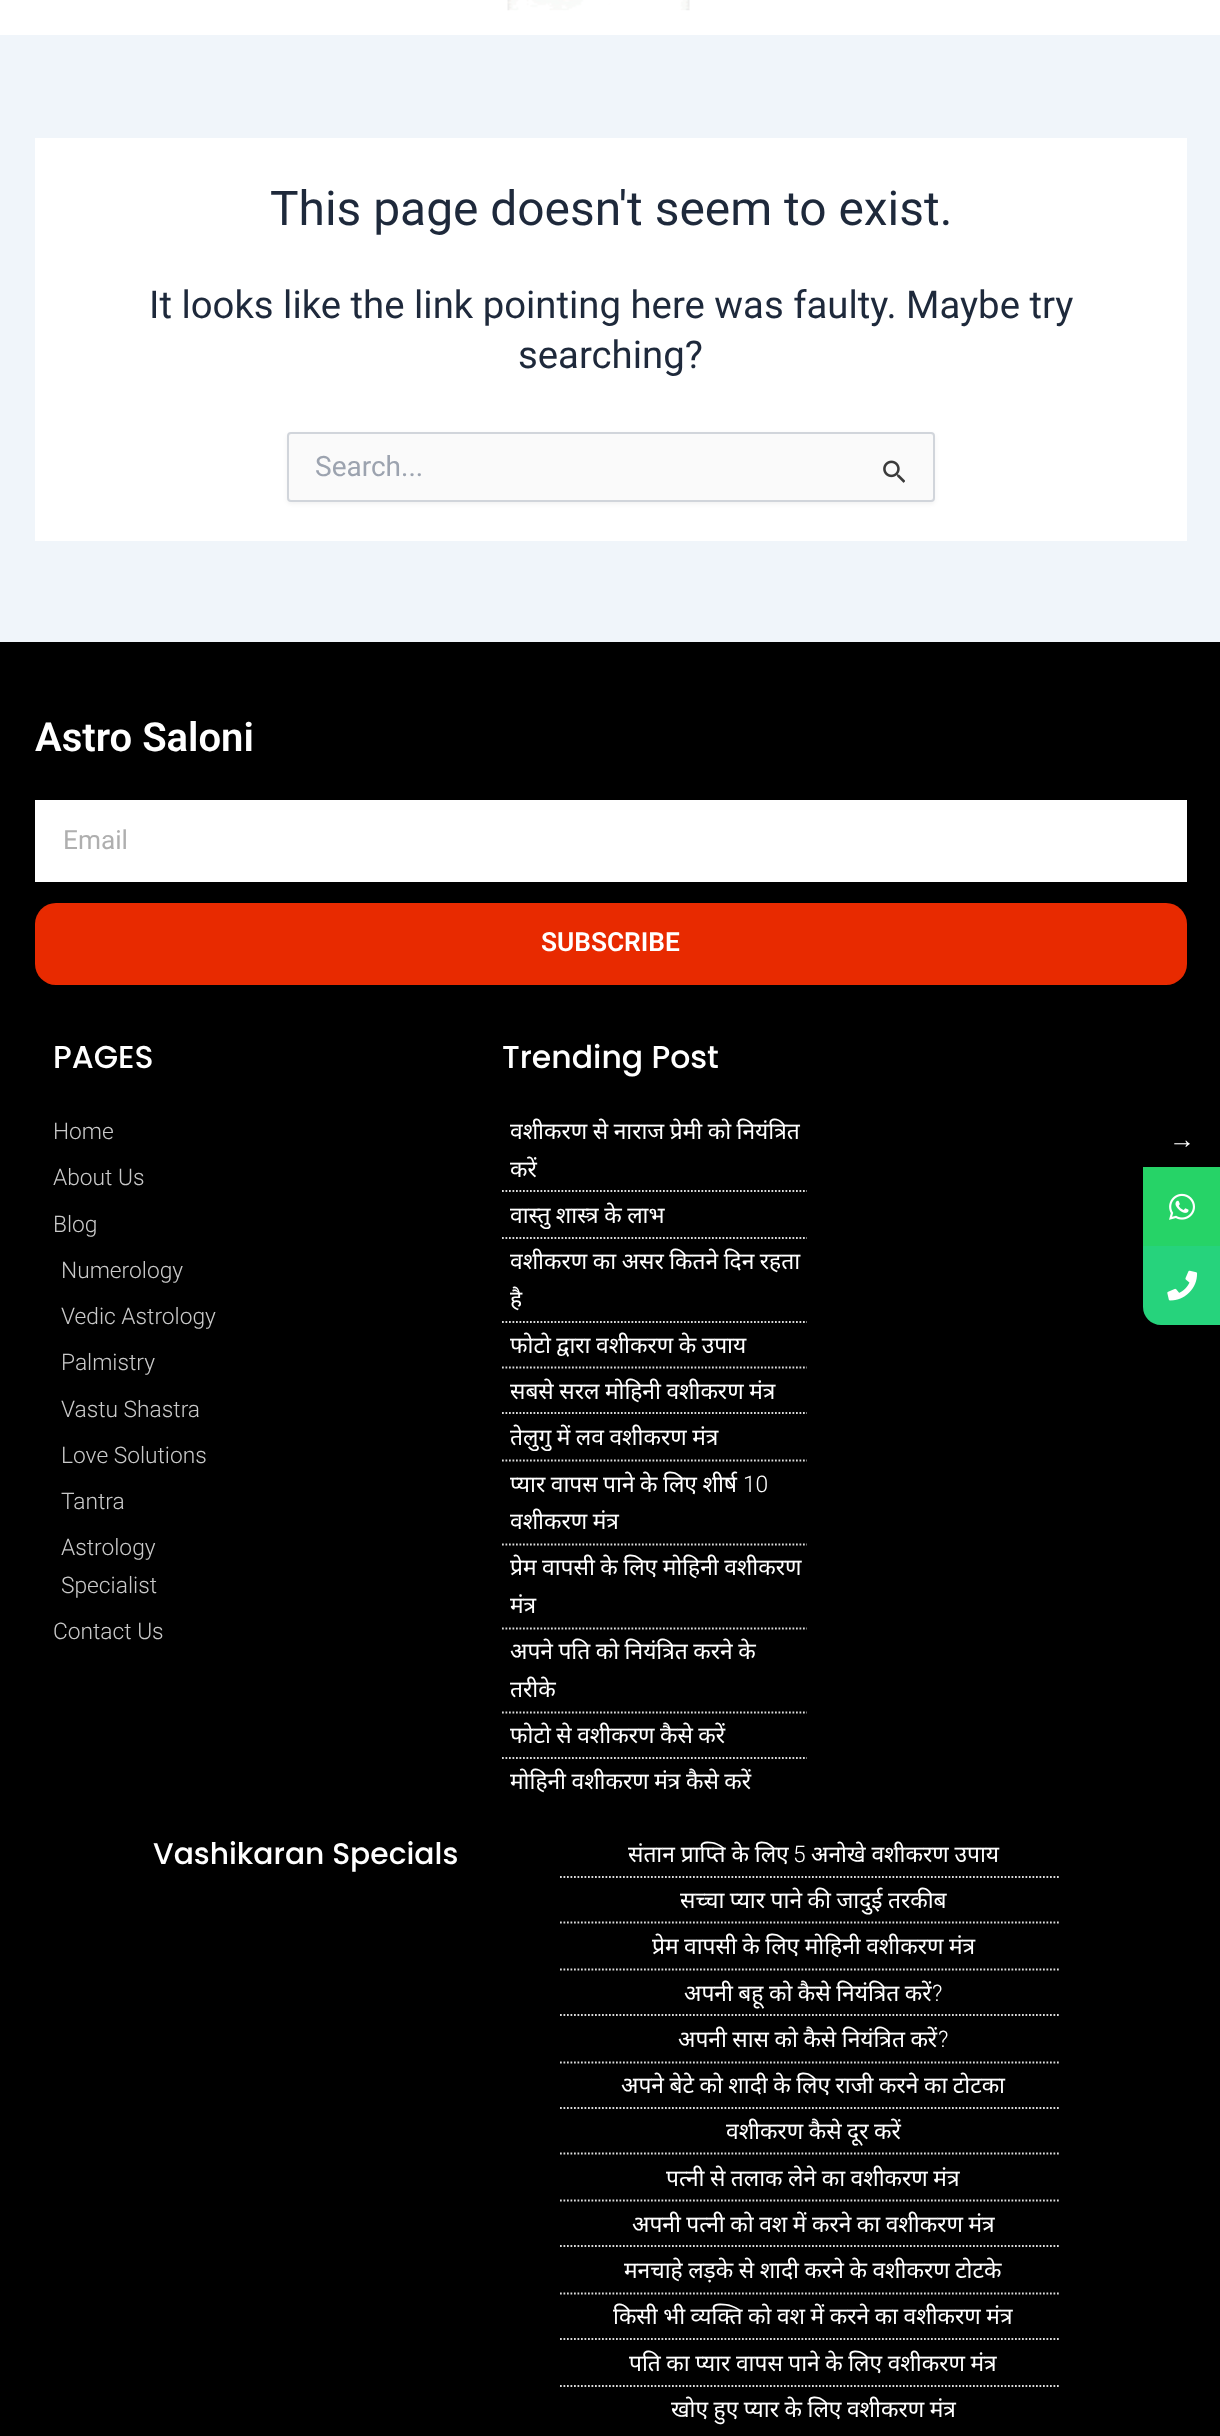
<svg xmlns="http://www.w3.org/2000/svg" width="1220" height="2436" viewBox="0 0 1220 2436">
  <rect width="100%" height="100%" fill="#f0f5fa"/>
  <path d="M0 0h1220v35H0z" fill="#fff"/>
  <image x="507" y="0" width="183" height="11" href="img/1.png"/>
  <path d="M35 138h1152v403H35z" fill="#fff"/>
  <rect x="287" y="434" width="648" height="70" rx="4" fill="#0000000d" filter="blur(2px)"/>
  <rect x="288" y="433" width="646" height="68" rx="3" fill="#fafafa" stroke="#d1d5db" stroke-width="2"/>
  <image x="883" y="460" width="22" height="23" href="img/2.png"/>
  <path d="M0 642h1220v1794H0z" fill="#000"/>
  <path d="M35 800h1152v82H35z" fill="#fff"/>
  <rect x="35" y="903" width="1152" height="82" rx="21" fill="#e82a00"/>
  <path d="M502 1191H807" fill="none" stroke="#ddd" stroke-width="1.8" stroke-dasharray="1.75 1.75"/>
  <path d="M502 1238H807" fill="none" stroke="#ddd" stroke-width="1.8" stroke-dasharray="1.75 1.75"/>
  <path d="M502 1322H807" fill="none" stroke="#ddd" stroke-width="1.8" stroke-dasharray="1.75 1.75"/>
  <path d="M502 1367.5H807" fill="none" stroke="#ddd" stroke-width="1.8" stroke-dasharray="1.75 1.75"/>
  <path d="M502 1413H807" fill="none" stroke="#ddd" stroke-width="1.8" stroke-dasharray="1.75 1.75"/>
  <path d="M502 1460.5H807" fill="none" stroke="#ddd" stroke-width="1.8" stroke-dasharray="1.75 1.75"/>
  <path d="M502 1544.5H807" fill="none" stroke="#ddd" stroke-width="1.8" stroke-dasharray="1.75 1.75"/>
  <path d="M502 1628.5H807" fill="none" stroke="#ddd" stroke-width="1.8" stroke-dasharray="1.75 1.75"/>
  <path d="M502 1712.5H807" fill="none" stroke="#ddd" stroke-width="1.8" stroke-dasharray="1.75 1.75"/>
  <path d="M502 1758H807" fill="none" stroke="#ddd" stroke-width="1.8" stroke-dasharray="1.75 1.75"/>
  <path d="M560 1877H1059" fill="none" stroke="#ddd" stroke-width="1.8" stroke-dasharray="1.75 1.75"/>
  <path d="M560 1922.5H1059" fill="none" stroke="#ddd" stroke-width="1.8" stroke-dasharray="1.75 1.75"/>
  <path d="M560 1969.5H1059" fill="none" stroke="#ddd" stroke-width="1.8" stroke-dasharray="1.75 1.75"/>
  <path d="M560 2015H1059" fill="none" stroke="#ddd" stroke-width="1.8" stroke-dasharray="1.75 1.75"/>
  <path d="M560 2062.5H1059" fill="none" stroke="#ddd" stroke-width="1.8" stroke-dasharray="1.75 1.75"/>
  <path d="M560 2108H1059" fill="none" stroke="#ddd" stroke-width="1.8" stroke-dasharray="1.75 1.75"/>
  <path d="M560 2153.5H1059" fill="none" stroke="#ddd" stroke-width="1.8" stroke-dasharray="1.75 1.75"/>
  <path d="M560 2200.5H1059" fill="none" stroke="#ddd" stroke-width="1.8" stroke-dasharray="1.75 1.75"/>
  <path d="M560 2246H1059" fill="none" stroke="#ddd" stroke-width="1.8" stroke-dasharray="1.75 1.75"/>
  <path d="M560 2293.5H1059" fill="none" stroke="#ddd" stroke-width="1.8" stroke-dasharray="1.75 1.75"/>
  <path d="M560 2339H1059" fill="none" stroke="#ddd" stroke-width="1.8" stroke-dasharray="1.75 1.75"/>
  <path d="M560 2386H1059" fill="none" stroke="#ddd" stroke-width="1.8" stroke-dasharray="1.75 1.75"/>
  <path d="M1143 1167h77v79H1143z" fill="#26d367"/>
  <image x="1169" y="1193" width="26" height="27" href="img/3.png"/>
  <path d="M1143 1246H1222V1325H1161C1151 1325 1143 1317 1143 1307Z" fill="#26d37c"/>
  <image x="1167" y="1270" width="31" height="31" href="img/4.png"/>
  <text x="270" y="225" font-family="Roboto" font-size="47.9" fill="#1e293b">This page doesn't seem to exist.</text>
  <g font-family="Roboto" font-size="38.3" fill="#1e293b">
    <text x="149" y="318">It looks like the link pointing here was faulty. Maybe try</text>
    <text x="518" y="368">searching?</text>
  </g>
  <text x="315" y="476" font-family="Roboto" font-size="28" fill="#9ca3af">Search...</text>
  <text x="35" y="751" font-family="Roboto" font-size="40" font-weight="600" fill="#fff">Astro Saloni</text>
  <text x="63" y="849" font-family="Roboto" font-size="26.25" fill="#afafaf">Email</text>
  <text x="541" y="951" font-family="Roboto" font-size="26.25" font-weight="600" fill="#fff">SUBSCRIBE</text>
  <text x="53" y="1068" font-family="Poppins" font-size="31.5" font-weight="500" fill="#fff">PAGES</text>
  <g font-family="Roboto" font-size="22.75" font-weight="300" fill="#c9c9c9">
    <text x="53" y="1139">Home</text>
    <text x="53" y="1185">About Us</text>
    <text x="53" y="1232">Blog</text>
    <text x="61" y="1278">Numerology</text>
    <text x="61" y="1324">Vedic Astrology</text>
    <text x="61" y="1370">Palmistry</text>
    <text x="61" y="1417">Vastu Shastra</text>
    <text x="61" y="1463">Love Solutions</text>
    <text x="61" y="1509">Tantra</text>
    <text x="61" y="1555">Astrology</text>
    <text x="61" y="1593">Specialist</text>
    <text x="53" y="1639">Contact Us</text>
  </g>
  <text x="502" y="1068" font-family="Poppins" font-size="31.5" font-weight="500" fill="#fff">Trending Post</text>
  <g font-family="Noto Sans" font-size="22.75" fill="#fff">
    <text x="510" y="1139" word-spacing="-0.4">वशीकरण से नाराज प्रेमी को नियंत्रित</text>
    <text x="510" y="1177">करें</text>
    <text x="510" y="1223" word-spacing="-0.4">वास्तु शास्त्र के लाभ</text>
    <text x="510" y="1269" word-spacing="-0.4">वशीकरण का असर कितने दिन रहता</text>
    <text x="510" y="1307">है</text>
    <text x="510" y="1353" word-spacing="-0.4">फोटो द्वारा वशीकरण के उपाय</text>
    <text x="510" y="1399" word-spacing="-0.4">सबसे सरल मोहिनी वशीकरण मंत्र</text>
    <text x="510" y="1445" word-spacing="-0.4">तेलुगु में लव वशीकरण मंत्र</text>
    <text x="510" y="1492" word-spacing="-0.4">प्यार वापस पाने के लिए शीर्ष</text>
  </g>
  <text x="743" y="1492" font-family="Roboto" font-size="22.75" font-weight="300" fill="#fff">10</text>
  <g font-family="Noto Sans" font-size="22.75" fill="#fff">
    <text x="510" y="1529" word-spacing="-0.4">वशीकरण मंत्र</text>
    <text x="510" y="1575" word-spacing="-0.4">प्रेम वापसी के लिए मोहिनी वशीकरण</text>
    <text x="510" y="1613">मंत्र</text>
    <text x="510" y="1659" word-spacing="-0.4">अपने पति को नियंत्रित करने के</text>
    <text x="510" y="1697">तरीके</text>
    <text x="510" y="1743" word-spacing="-0.4">फोटो से वशीकरण कैसे करें</text>
    <text x="510" y="1789" word-spacing="-0.4">मोहिनी वशीकरण मंत्र कैसे करें</text>
  </g>
  <text x="153" y="1864" font-family="Poppins" font-size="29.75" font-weight="500" fill="#fff">Vashikaran Specials</text>
  <text x="628" y="1862" font-family="Noto Sans" font-size="22.75" fill="#fff">संतान प्राप्ति के लिए</text>
  <text x="793" y="1862" font-family="Roboto" font-size="22.75" font-weight="300" fill="#fff">5</text>
  <g font-family="Noto Sans" font-size="22.75" fill="#fff">
    <text x="811" y="1862">अनोखे वशीकरण उपाय</text>
    <text x="680" y="1908" word-spacing="-0.4">सच्चा प्यार पाने की जादुई तरकीब</text>
    <text x="652" y="1954" word-spacing="-0.4">प्रेम वापसी के लिए मोहिनी वशीकरण मंत्र</text>
    <text x="684" y="2001" word-spacing="-0.4">अपनी बहू को कैसे नियंत्रित करें</text>
  </g>
  <text x="932" y="2001" font-family="Roboto" font-size="22.75" font-weight="300" fill="#fff">?</text>
  <text x="678" y="2047" word-spacing="-0.4" font-family="Noto Sans" font-size="22.75" fill="#fff">अपनी सास को कैसे नियंत्रित करें</text>
  <text x="938" y="2047" font-family="Roboto" font-size="22.75" font-weight="300" fill="#fff">?</text>
  <g font-family="Noto Sans" font-size="22.75" fill="#fff">
    <text x="621" y="2093" word-spacing="-0.4">अपने बेटे को शादी के लिए राजी करने का टोटका</text>
    <text x="726" y="2139" word-spacing="-0.4">वशीकरण कैसे दूर करें</text>
    <text x="666" y="2186" word-spacing="-0.4">पत्नी से तलाक लेने का वशीकरण मंत्र</text>
    <text x="632" y="2232" word-spacing="-0.4">अपनी पत्नी को वश में करने का वशीकरण मंत्र</text>
    <text x="624" y="2278" word-spacing="-0.4">मनचाहे लड़के से शादी करने के वशीकरण टोटके</text>
    <text x="613" y="2324" word-spacing="-0.4">किसी भी व्यक्ति को वश में करने का वशीकरण मंत्र</text>
    <text x="629" y="2371" word-spacing="-0.4">पति का प्यार वापस पाने के लिए वशीकरण मंत्र</text>
    <text x="671" y="2417" word-spacing="-0.4">खोए हुए प्यार के लिए वशीकरण मंत्र</text>
  </g>
  <text x="1169" y="1148" font-family="Liberation Serif" font-size="26" fill="#fff">→</text>
</svg>
